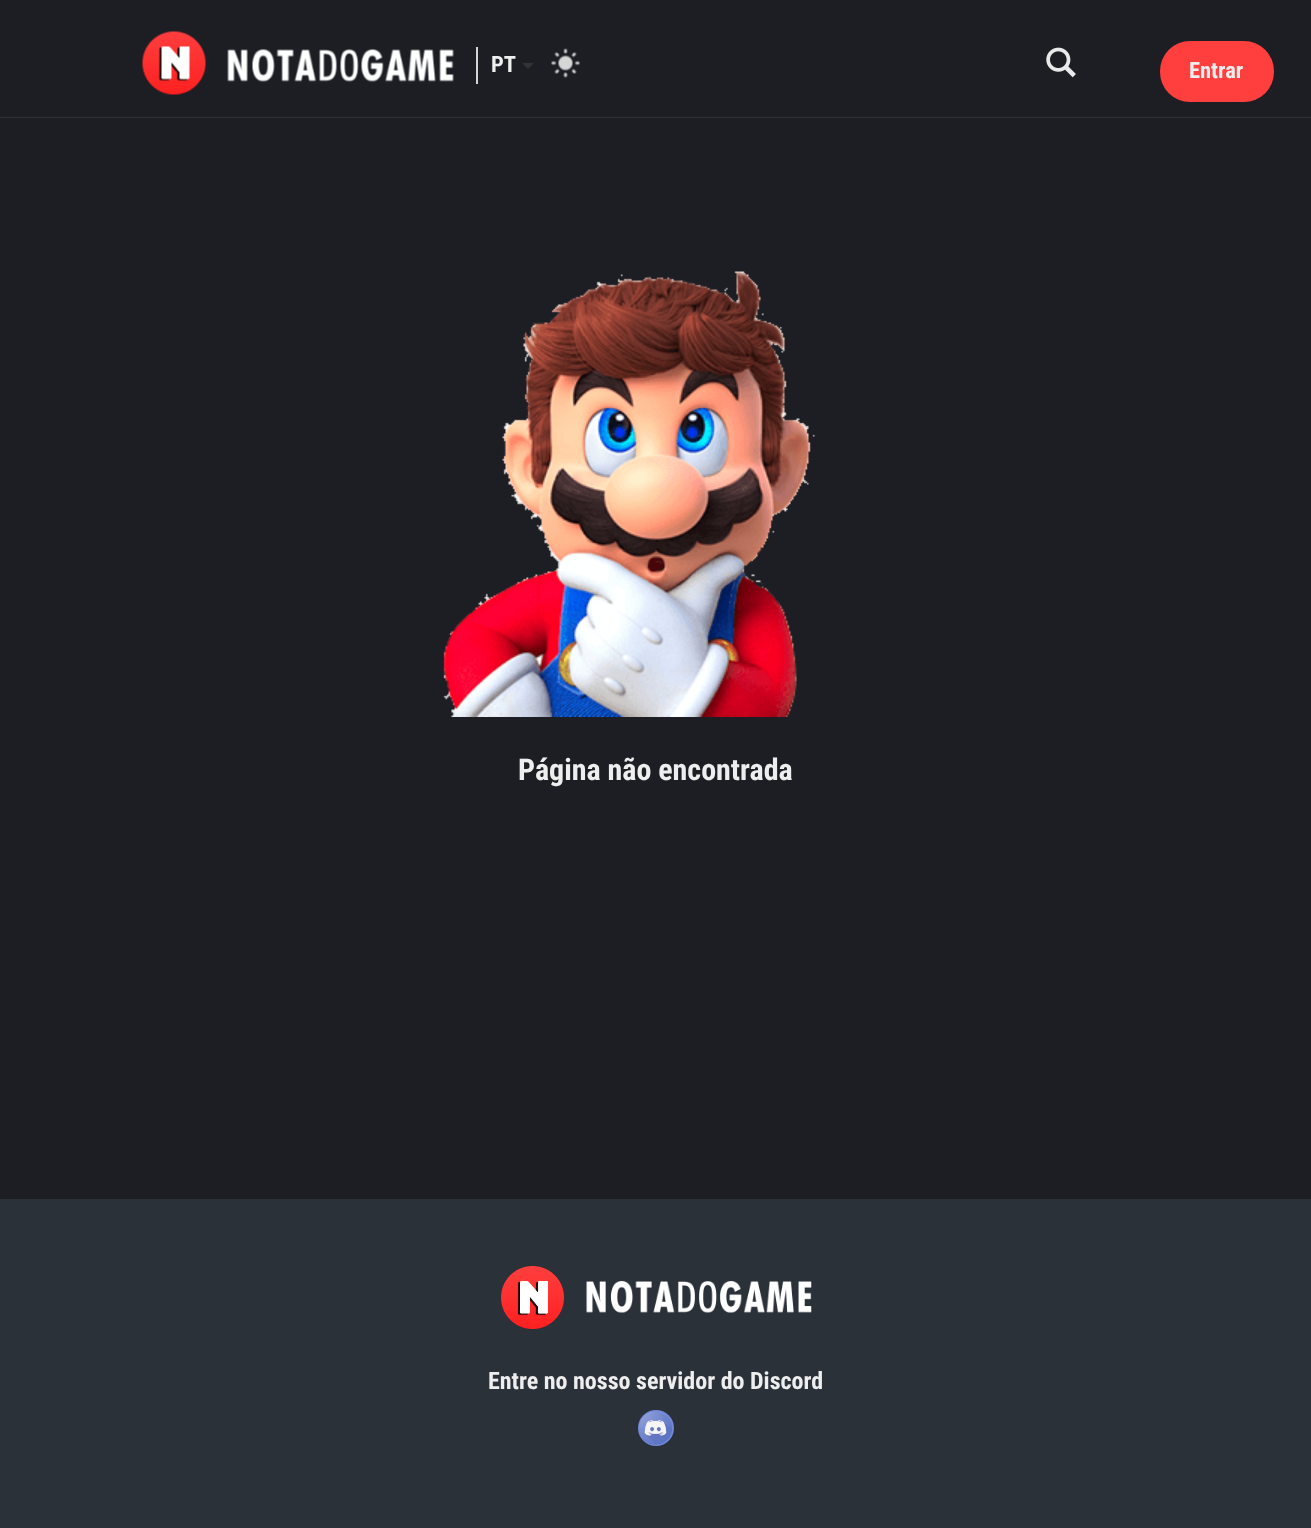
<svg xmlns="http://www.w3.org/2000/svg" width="1311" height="1528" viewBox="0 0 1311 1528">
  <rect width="100%" height="100%" fill="#1c1e24"/>
  <image x="142" y="31" width="64" height="64" href="img/1.png"/>
  <image x="227" y="49" width="227" height="33" href="img/2.png"/>
  <path d="M476 47h2v37H476z" fill="#d4d4d4"/>
  <path d="M522 63H534L528 69Z" fill="#333"/>
  <image x="551" y="48" width="29" height="30" href="img/3.png"/>
  <image x="1046" y="47" width="30" height="31" href="img/4.png"/>
  <rect x="1160" y="41" width="114" height="61" rx="30" fill="#ff3e3e"/>
  <path d="M0 117h1311v1H0z" fill="#2b3139"/>
  <image x="443" y="271" width="372" height="446" href="img/5.png"/>
  <path d="M0 1199h1311v329H0z" fill="#2b3139"/>
  <image x="501" y="1266" width="63" height="63" href="img/6.png"/>
  <image x="586" y="1281" width="226" height="32" href="img/7.png"/>
  <circle cx="656" cy="1428" r="18" fill="#7289da"/>
  <image x="639" y="1411" width="33" height="34" href="img/8.png"/>
  <g font-family="Roboto Condensed" font-size="22.5" font-weight="bold" fill="#eee">
    <text x="491" y="72">PT</text>
    <text x="1189" y="78">Entrar</text>
  </g>
  <text x="518" y="780" font-family="Roboto Condensed" font-size="30" font-weight="bold" fill="#eee">Página não encontrada</text>
  <text x="488" y="1389" font-family="Roboto Condensed" font-size="24" font-weight="bold" fill="#eee">Entre no nosso servidor do Discord</text>
</svg>
